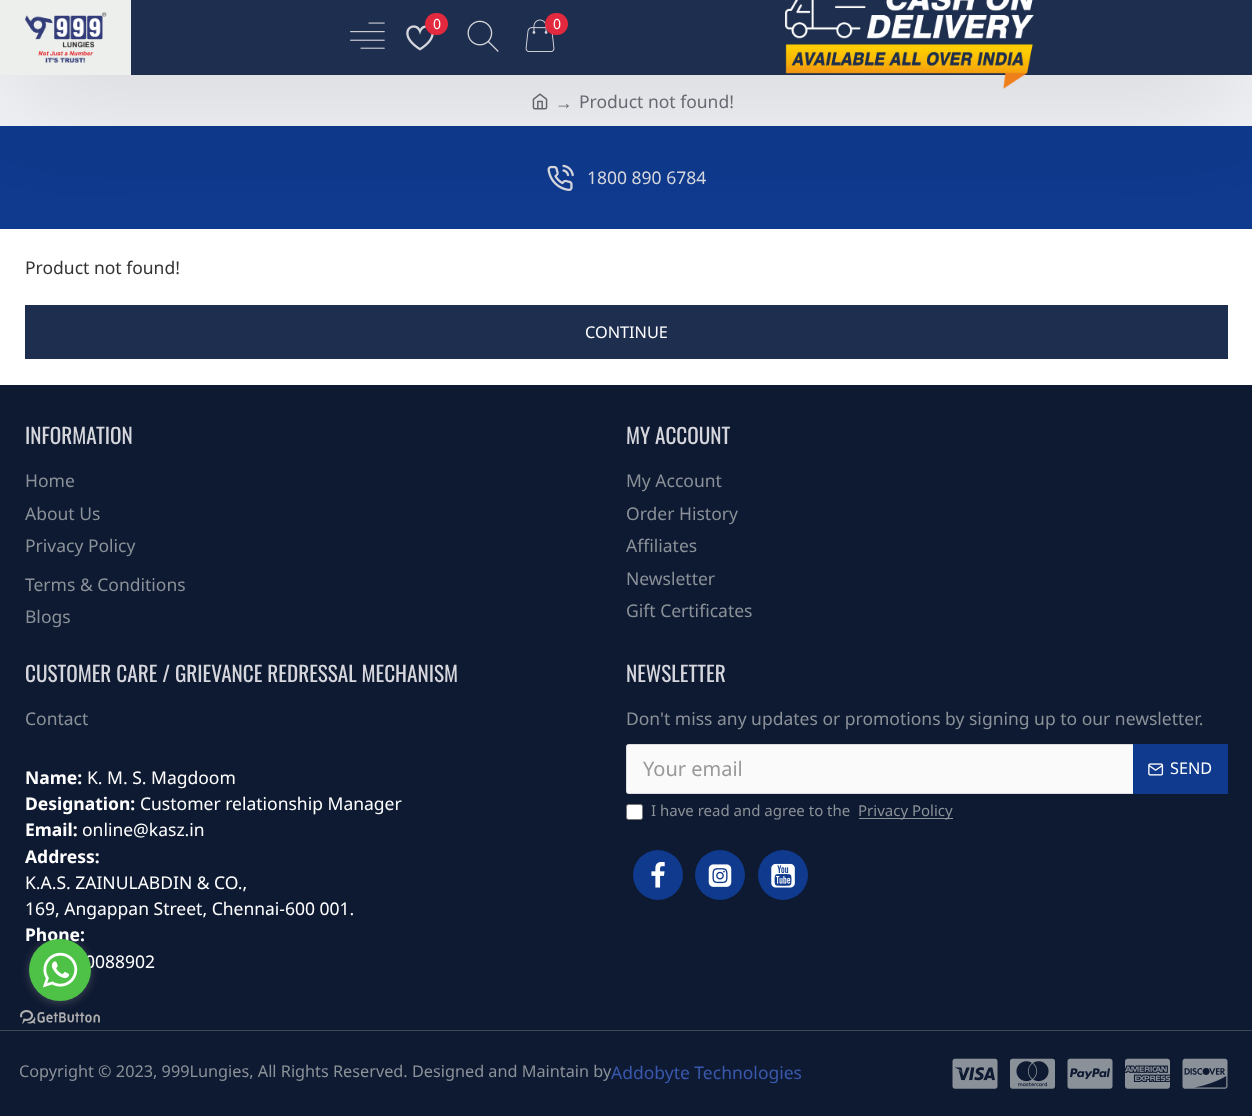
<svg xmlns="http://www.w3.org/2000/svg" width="1252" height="1116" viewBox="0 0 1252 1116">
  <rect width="100%" height="100%" fill="#fff"/>
  <path d="M0 75h1252v51H0z" fill="#f0f2f5"/>
  <image x="532" y="93" width="16" height="17" href="img/7.png"/>
  <path d="M0 126h1252v103H0z" fill="#0f3a8d"/>
  <image x="547" y="164" width="27" height="27" href="img/8.png"/>
  <path d="M13 31h1227v50H13z" fill="#00000033" filter="blur(56px)"/>
  <path d="M131 0h1121v75H131z" fill="#1e2e4e"/>
  <path d="M0 0h131v75H0z" fill="#edefec"/>
  <image x="25" y="12" width="82" height="51" href="img/1.png"/>
  <image x="350" y="22" width="35" height="27" href="img/2.png"/>
  <image x="406" y="25" width="28" height="26" href="img/3.png"/>
  <rect x="425" y="13" width="23" height="22" rx="11" fill="#e2293d"/>
  <image x="467" y="20" width="32" height="32" href="img/4.png"/>
  <image x="525" y="19" width="30" height="33" href="img/5.png"/>
  <rect x="545" y="13" width="23" height="22" rx="11" fill="#e2293d"/>
  <image x="785" y="0" width="249" height="89" href="img/6.png"/>
  <path d="M25 305h1203v54H25z" fill="#1e2e4e"/>
  <path d="M0 385h1252v731H0z" fill="#0e1a32"/>
  <rect x="626.5" y="744.5" width="601" height="49" rx="2" fill="#fafafa" stroke="#ddd"/>
  <path d="M1133 744h95v50H1133z" fill="#0f3a8d"/>
  <image x="1148" y="763" width="16" height="13" href="img/9.png"/>
  <rect x="626.5" y="804.5" width="16" height="15" rx="2" fill="#fff" stroke="#767676"/>
  <path d="M859 818h94v1H859z" fill="#8b9198"/>
  <circle cx="658" cy="875" r="25" fill="#0f3a8d"/>
  <image x="651" y="862" width="14" height="26" href="img/10.png"/>
  <circle cx="720" cy="875" r="25" fill="#0f3a8d"/>
  <image x="708" y="864" width="24" height="23" href="img/11.png"/>
  <circle cx="783" cy="875" r="25" fill="#0f3a8d"/>
  <image x="771" y="863" width="24" height="25" href="img/12.png"/>
  <path d="M0 1030h1252v1H0z" fill="#3a4754"/>
  <image x="952" y="1058" width="46" height="31" href="img/13.png"/>
  <image x="1010" y="1058" width="45" height="31" href="img/14.png"/>
  <image x="1067" y="1058" width="46" height="31" href="img/15.png"/>
  <image x="1125" y="1058" width="45" height="31" href="img/16.png"/>
  <image x="1182" y="1058" width="46" height="31" href="img/17.png"/>
  <image x="20" y="1010" width="80" height="14" href="img/19.png"/>
  <rect x="29" y="940" width="62" height="63" rx="31" fill="#88888866" filter="blur(4.5px)"/>
  <g font-family="Noto Sans" font-size="14" fill="#fff">
    <text x="433" y="29">0</text>
    <text x="553" y="29">0</text>
  </g>
  <text x="555" y="109" font-family="Liberation Serif" font-size="17.5" fill="#696973">→</text>
  <text x="579" y="108" font-family="Noto Sans" font-size="17.5" fill="#696973">Product not found!</text>
  <text x="587" y="184" font-family="Noto Sans" font-size="17.5" fill="#d6d6dd">1800 890 6784</text>
  <text x="25" y="274" font-family="Noto Sans" font-size="17.5" fill="#333">Product not found!</text>
  <text x="585" y="338" font-family="Noto Sans" font-size="16.25" fill="#fff">CONTINUE</text>
  <text x="25" y="444" font-family="Oswald" font-size="21.25" fill="#d6d6dd">INFORMATION</text>
  <g font-family="Noto Sans" font-size="17.5" fill="#8b9198">
    <text x="25" y="487">Home</text>
    <text x="25" y="520">About Us</text>
    <text x="25" y="552">Privacy Policy</text>
    <text x="25" y="591">Terms &amp; Conditions</text>
    <text x="25" y="623">Blogs</text>
  </g>
  <text x="626" y="444" font-family="Oswald" font-size="21.25" fill="#d6d6dd">MY ACCOUNT</text>
  <g font-family="Noto Sans" font-size="17.5" fill="#8b9198">
    <text x="626" y="487">My Account</text>
    <text x="626" y="520">Order History</text>
    <text x="626" y="552">Affiliates</text>
    <text x="626" y="585">Newsletter</text>
    <text x="626" y="617">Gift Certificates</text>
  </g>
  <text x="25" y="682" font-family="Oswald" font-size="21.25" fill="#d6d6dd">CUSTOMER CARE / GRIEVANCE REDRESSAL MECHANISM</text>
  <text x="25" y="725" font-family="Noto Sans" font-size="17.5" fill="#8b9198">Contact</text>
  <text x="25" y="784" font-family="Noto Sans" font-size="17.5" font-weight="bold" fill="#fff">Name:</text>
  <text x="87" y="784" font-family="Noto Sans" font-size="17.5" fill="#fff">K. M. S. Magdoom</text>
  <text x="25" y="810" font-family="Noto Sans" font-size="17.5" font-weight="bold" fill="#fff">Designation:</text>
  <text x="140" y="810" font-family="Noto Sans" font-size="17.5" fill="#fff">Customer relationship Manager</text>
  <text x="25" y="836" font-family="Noto Sans" font-size="17.5" font-weight="bold" fill="#fff">Email:</text>
  <text x="82" y="836" font-family="Noto Sans" font-size="17.5" fill="#fff">online@kasz.in</text>
  <text x="25" y="863" font-family="Noto Sans" font-size="17.5" font-weight="bold" fill="#fff">Address:</text>
  <g font-family="Noto Sans" font-size="17.5" fill="#fff">
    <text x="25" y="889">K.A.S. ZAINULABDIN &amp; CO.,</text>
    <text x="25" y="915">169, Angappan Street, Chennai-600 001.</text>
  </g>
  <text x="25" y="941" font-family="Noto Sans" font-size="17.5" font-weight="bold" fill="#fff">Phone:</text>
  <text x="85" y="968" font-family="Noto Sans" font-size="17.5" fill="#fff">0088902</text>
  <text x="626" y="682" font-family="Oswald" font-size="21.25" fill="#d6d6dd">NEWSLETTER</text>
  <text x="626" y="725" font-family="Noto Sans" font-size="17.5" fill="#8b9198">Don't miss any updates or promotions by signing up to our newsletter.</text>
  <text x="643" y="776" font-family="Noto Sans" font-size="20" fill="#999">Your email</text>
  <text x="1170" y="774" font-family="Noto Sans" font-size="16.25" fill="#fff">SEND</text>
  <g font-family="Noto Sans" font-size="15" fill="#8b9198">
    <text x="651" y="816">I have read and agree to the</text>
    <text x="858" y="816">Privacy Policy</text>
  </g>
  <text x="19" y="1077" font-family="Noto Sans" font-size="16.25" fill="#8b9198">Copyright © 2023, 999Lungies, All Rights Reserved. Designed and Maintain by</text>
  <text x="611" y="1079" font-family="Noto Sans" font-size="17.5" fill="#3a58ad">Addobyte Technologies</text>
  <circle cx="60" cy="970" r="31" fill="#4dc247"/>
  <image x="42" y="952" width="36" height="36" href="img/18.png"/>
</svg>
